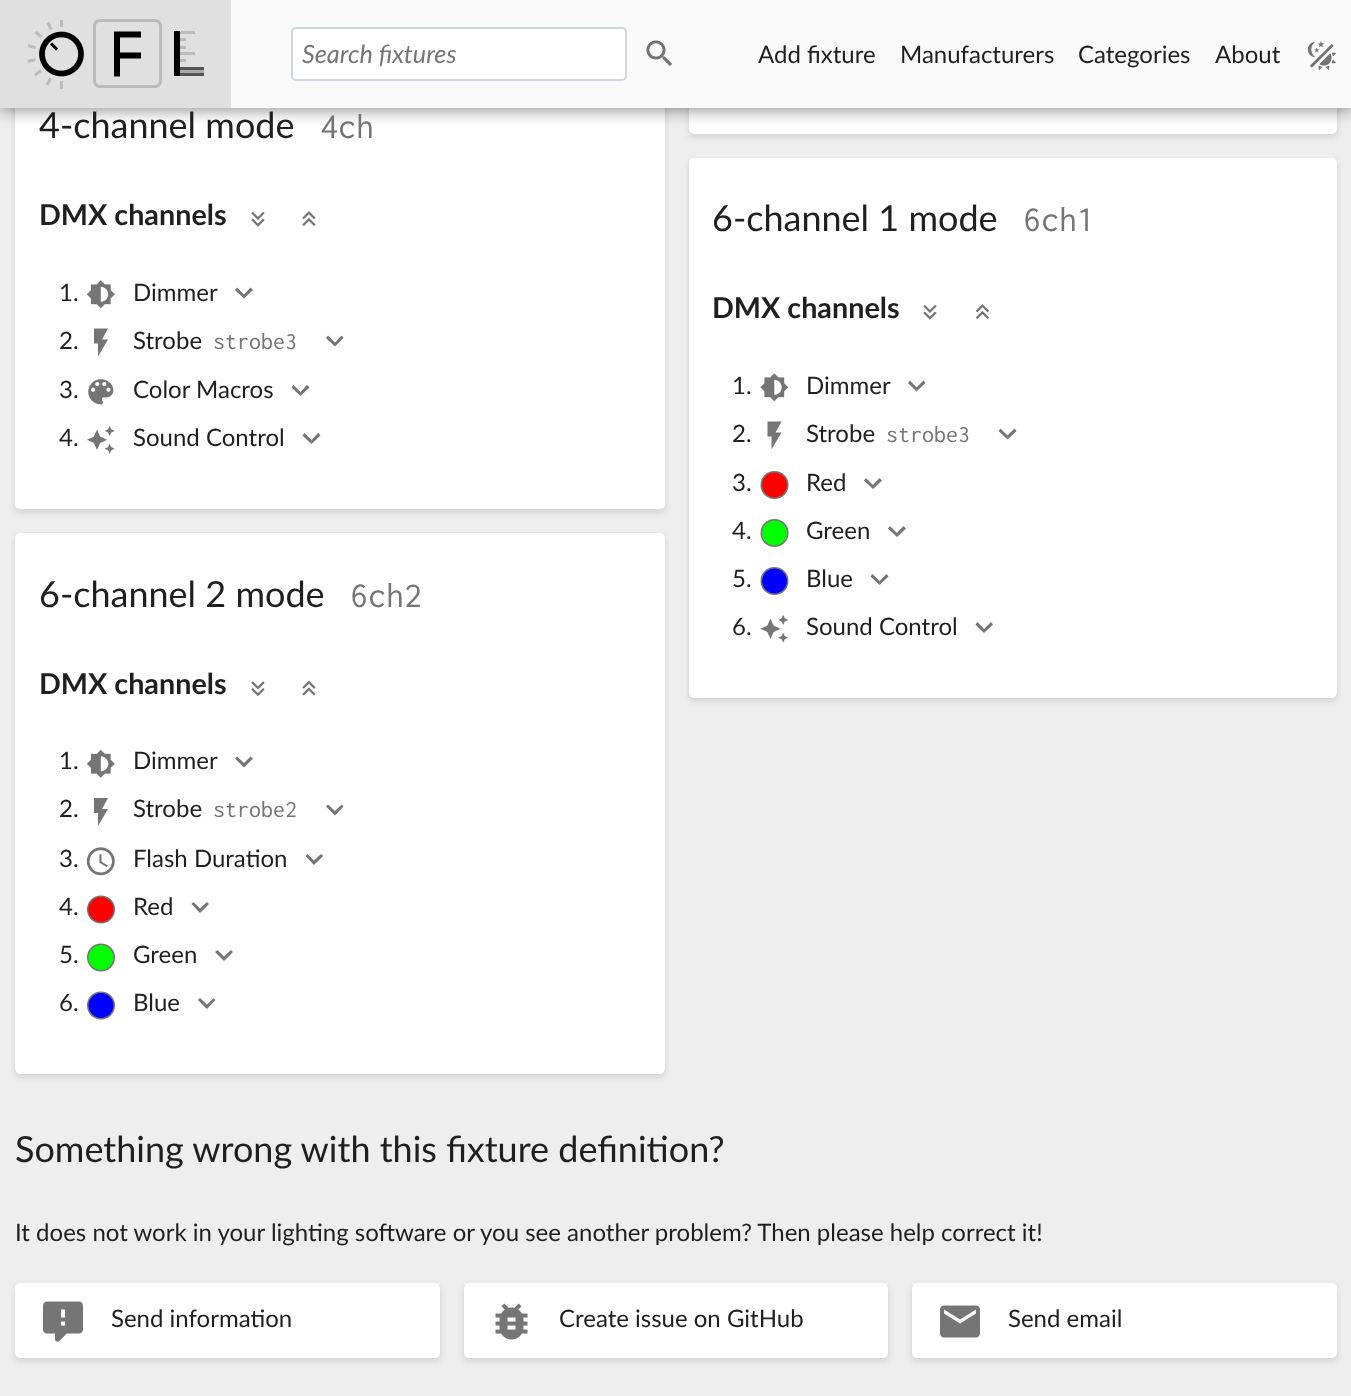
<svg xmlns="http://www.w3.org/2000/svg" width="1351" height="1396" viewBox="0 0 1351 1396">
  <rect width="100%" height="100%" fill="#eee"/>
  <rect x="689" y="-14" width="648" height="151" rx="5" fill="#0000001f" filter="blur(3px)"/>
  <rect x="689" y="-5" width="648" height="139" rx="5" fill="#fff"/>
  <rect x="15" y="68" width="650" height="444" rx="5" fill="#0000001f" filter="blur(3px)"/>
  <rect x="15" y="65" width="650" height="444" rx="5" fill="#fff"/>
  <path d="M0 3h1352v108H0z" fill="#00000066" filter="blur(7.5px)"/>
  <path d="M231 0h1120v108H231z" fill="#fafafa"/>
  <path d="M0 0h231v108H0z" fill="#e0e0e0"/>
  <image x="27" y="19" width="177" height="70" href="img/1.png"/>
  <rect x="292" y="28" width="334" height="52" rx="4" fill="#fff" stroke="#cfd6e6" stroke-width="2"/>
  <image x="646" y="40" width="26" height="26" href="img/2.png"/>
  <image x="1307" y="41" width="29" height="29" href="img/3.png"/>
  <image x="251" y="211" width="14" height="16" href="img/4.png"/>
  <image x="302" y="211" width="14" height="15" href="img/5.png"/>
  <image x="86" y="280" width="29" height="29" href="img/6.png"/>
  <path d="M253 290L244 298.5V294.5L250.5 287.5ZM244 298.5L235 290L237 287.5L244 294.5Z" fill="#757575"/>
  <path d="M94 328.5V343.5H98V356.5L108 339.5H102L108 328.5Z" fill="#757575"/>
  <path d="M343.5 338L335 346.5V342.5L341.5 335.5ZM335 346.5L326 338L328 335.5L335 342.5ZM309.5 387.5L300.5 396V392L307 385Z" fill="#757575"/>
  <image x="88" y="379" width="26" height="26" href="img/7.png"/>
  <path d="M300.5 396L291.5 387.5L293.5 385L300.5 392Z" fill="#0000008a"/>
  <image x="87" y="426" width="28" height="28" href="img/8.png"/>
  <path d="M320.5 435.5L311.5 444V440L318 433Z" fill="#757575"/>
  <path d="M311.5 444L302.5 435.5L304.5 433L311.5 440Z" fill="#0000008a"/>
  <rect x="689" y="161" width="648" height="540" rx="5" fill="#0000001f" filter="blur(3px)"/>
  <rect x="689" y="158" width="648" height="540" rx="5" fill="#fff"/>
  <image x="923" y="304" width="14" height="16" href="img/4.png"/>
  <image x="975" y="304" width="14" height="15" href="img/9.png"/>
  <image x="760" y="373" width="29" height="29" href="img/10.png"/>
  <path d="M925.5 383L916.5 391.5V387.5L923.5 380.5Z" fill="#757575"/>
  <path d="M916.5 391.5L908 383L910 380.5L916.5 387.5Z" fill="#0000008a"/>
  <path d="M767.5 421.5V436.5H771.5V449.5L781.5 432.5H775.5L781.5 421.5Z" fill="#757575"/>
  <path d="M1016.5 431L1007.5 439.5V435.5L1014.5 428.5Z" fill="#757575"/>
  <path d="M1007.5 439.5L998.5 431L1000.5 428.5L1007.5 435.5Z" fill="#0000008a"/>
  <circle cx="774.5" cy="485" r="14" fill="#757575"/>
  <circle cx="774.5" cy="485" r="12.5" fill="#f00"/>
  <circle cx="774.5" cy="533" r="14" fill="#757575"/>
  <circle cx="774.5" cy="533" r="12.5" fill="#0f0"/>
  <circle cx="774.5" cy="581" r="14" fill="#757575"/>
  <circle cx="774.5" cy="581" r="12.5" fill="#00f"/>
  <image x="760" y="615" width="28" height="28" href="img/11.png"/>
  <path d="M993 624.5L984 633V629L991 622ZM984 633L975.5 624.5L977.5 622L984 629Z" fill="#757575"/>
  <rect x="15" y="536" width="650" height="541" rx="5" fill="#0000001f" filter="blur(3px)"/>
  <rect x="15" y="533" width="650" height="541" rx="5" fill="#fff"/>
  <image x="251" y="681" width="14" height="16" href="img/12.png"/>
  <image x="302" y="680" width="14" height="16" href="img/13.png"/>
  <image x="86" y="750" width="29" height="28" href="img/14.png"/>
  <path d="M253 758.5L244 767.5V763L250.5 756.5ZM244 767.5L235 758.5L237 756.5L244 763Z" fill="#757575"/>
  <path d="M94 798V813H98V826L108 809H102L108 798Z" fill="#757575"/>
  <path d="M343.5 806.5L335 815.5V811L341.5 804.5ZM335 815.5L326 806.5L328 804.5L335 811ZM323 856L314 865V860.5L321 854ZM314 865L305.5 856L307.5 854L314 860.5Z" fill="#757575"/>
  <image x="86" y="847" width="29" height="29" href="img/15.png"/>
  <circle cx="101" cy="909.5" r="14" fill="#757575"/>
  <circle cx="101" cy="909.5" r="12.5" fill="#f00"/>
  <circle cx="101" cy="957.5" r="14" fill="#757575"/>
  <circle cx="101" cy="957.5" r="12.5" fill="#0f0"/>
  <circle cx="101" cy="1005.5" r="14" fill="#757575"/>
  <circle cx="101" cy="1005.5" r="12.5" fill="#00f"/>
  <rect x="15" y="1286" width="425" height="75" rx="5" fill="#0000001f" filter="blur(3px)"/>
  <rect x="15" y="1283" width="425" height="75" rx="5" fill="#fff"/>
  <image x="43" y="1301" width="40" height="41" href="img/16.png"/>
  <rect x="464" y="1286" width="424" height="75" rx="5" fill="#0000001f" filter="blur(3px)"/>
  <rect x="464" y="1283" width="424" height="75" rx="5" fill="#fff"/>
  <image x="495" y="1303" width="33" height="37" href="img/17.png"/>
  <rect x="912" y="1286" width="425" height="75" rx="5" fill="#0000001f" filter="blur(3px)"/>
  <rect x="912" y="1283" width="425" height="75" rx="5" fill="#fff"/>
  <image x="940" y="1305" width="40" height="33" href="img/18.png"/>
  <text x="302" y="63" font-family="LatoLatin" font-size="25.25" font-style="italic" fill="#757575">Search fixtures</text>
  <g font-family="Lato" font-size="24" fill="#1f1f1f">
    <text x="758" y="63">Add fixture</text>
    <text x="900" y="63">Manufacturers</text>
    <text x="1078" y="63">Categories</text>
    <text x="1215" y="63">About</text>
  </g>
  <text x="39" y="138" font-family="Lato" font-size="36" fill="#1f1f1f">4-channel mode</text>
  <text x="320" y="138" font-family="Inconsolata" font-size="36" fill="#757575">4ch</text>
  <text x="39" y="225" font-family="Lato" font-size="28.75" font-weight="bold" fill="#1f1f1f">DMX channels</text>
  <g font-family="Lato" font-size="24" fill="#1f1f1f">
    <text x="59" y="301">1.</text>
    <text x="133" y="301">Dimmer</text>
    <text x="59" y="349">2.</text>
    <text x="133" y="349">Strobe</text>
  </g>
  <text x="213" y="349" font-family="Inconsolata" font-size="24" fill="#757575">strobe3</text>
  <g font-family="Lato" font-size="24" fill="#1f1f1f">
    <text x="59" y="398">3.</text>
    <text x="133" y="398">Color Macros</text>
    <text x="59" y="446">4.</text>
    <text x="133" y="446">Sound Control</text>
  </g>
  <text x="712" y="231" font-family="Lato" font-size="36" fill="#1f1f1f">6-channel 1 mode</text>
  <text x="1023" y="231" font-family="Inconsolata" font-size="36" fill="#757575">6ch1</text>
  <text x="712" y="318" font-family="Lato" font-size="28.75" font-weight="bold" fill="#1f1f1f">DMX channels</text>
  <g font-family="Lato" font-size="24" fill="#1f1f1f">
    <text x="732" y="394">1.</text>
    <text x="806" y="394">Dimmer</text>
    <text x="732" y="442">2.</text>
    <text x="806" y="442">Strobe</text>
  </g>
  <text x="886" y="442" font-family="Inconsolata" font-size="24" fill="#757575">strobe3</text>
  <g font-family="Lato" font-size="24" fill="#1f1f1f">
    <text x="732" y="491">3.</text>
    <text x="806" y="491">Red</text>
    <text x="732" y="539">4.</text>
    <text x="806" y="539">Green</text>
  </g>
  <path d="M882 480.5L873 489V485L879.5 478ZM873 489L864 480.5L866 478L873 485ZM906 528.5L897 537V533L903.5 526Z" fill="#757575"/>
  <path d="M897 537L888 528.5L890 526L897 533ZM888.5 576.5L879.5 585V581L886.5 574Z" fill="#757575"/>
  <g font-family="Lato" font-size="24" fill="#1f1f1f">
    <text x="732" y="587">5.</text>
    <text x="806" y="587">Blue</text>
  </g>
  <path d="M879.5 585L870.5 576.5L872.5 574L879.5 581Z" fill="#0000008a"/>
  <g font-family="Lato" font-size="24" fill="#1f1f1f">
    <text x="732" y="635">6.</text>
    <text x="806" y="635">Sound Control</text>
  </g>
  <text x="39" y="607" font-family="Lato" font-size="36" fill="#1f1f1f">6-channel 2 mode</text>
  <text x="350" y="607" font-family="Inconsolata" font-size="36" fill="#757575">6ch2</text>
  <text x="39" y="694" font-family="Lato" font-size="28.75" font-weight="bold" fill="#1f1f1f">DMX channels</text>
  <g font-family="Lato" font-size="24" fill="#1f1f1f">
    <text x="59" y="769">1.</text>
    <text x="133" y="769">Dimmer</text>
    <text x="59" y="817">2.</text>
    <text x="133" y="817">Strobe</text>
  </g>
  <text x="213" y="817" font-family="Inconsolata" font-size="24" fill="#757575">strobe2</text>
  <g font-family="Lato" font-size="24" fill="#1f1f1f">
    <text x="59" y="867">3.</text>
    <text x="133" y="867">Flash Duration</text>
    <text x="59" y="915">4.</text>
    <text x="133" y="915">Red</text>
    <text x="59" y="963">5.</text>
    <text x="133" y="963">Green</text>
  </g>
  <path d="M209 904L200 913V908.5L207 902ZM200 913L191.5 904L193.5 902L200 908.5ZM233 952L224 961V956.5L231 950Z" fill="#757575"/>
  <path d="M224 961L215 952L217.5 950L224 956.5ZM215.5 1000L207 1009V1004.5L213.5 998ZM207 1009L198 1000L200 998L207 1004.5Z" fill="#757575"/>
  <g font-family="Lato" font-size="24" fill="#1f1f1f">
    <text x="59" y="1011">6.</text>
    <text x="133" y="1011">Blue</text>
  </g>
  <text x="15" y="1162" font-family="Lato" font-size="36" fill="#1f1f1f">Something wrong with this fixture definition?</text>
  <g font-family="Lato" font-size="24" fill="#1f1f1f">
    <text x="15" y="1241">It does not work in your lighting software or you see another problem? Then please help correct it!</text>
    <text x="111" y="1327">Send information</text>
    <text x="559" y="1327">Create issue on GitHub</text>
    <text x="1008" y="1327">Send email</text>
  </g>
</svg>
